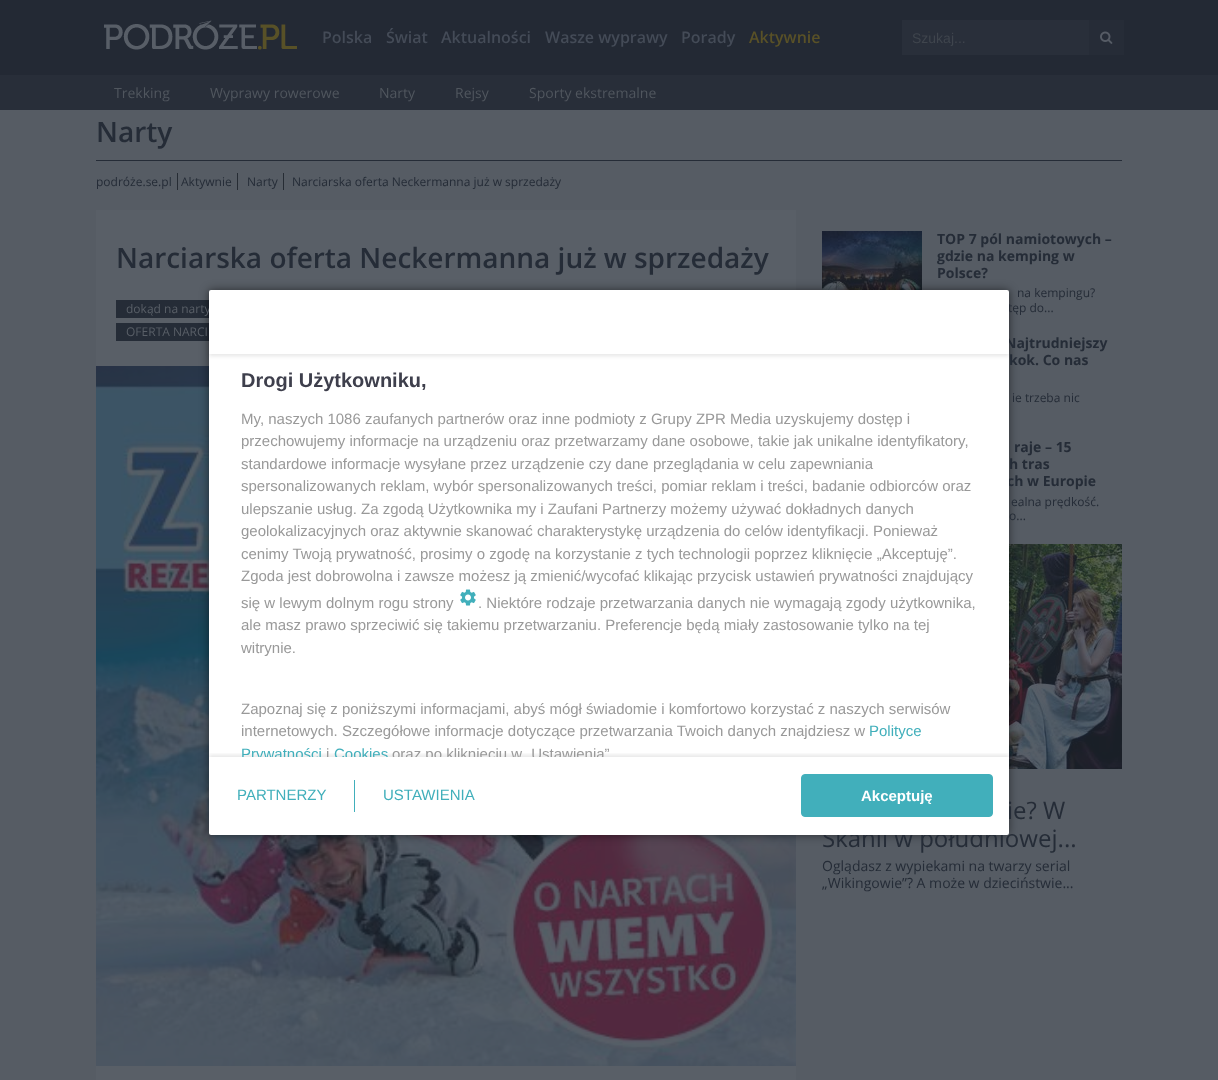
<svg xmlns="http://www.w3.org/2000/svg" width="1218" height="1080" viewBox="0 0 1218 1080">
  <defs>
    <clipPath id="clip1"><path d="M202 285H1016V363H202ZM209 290H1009V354H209Z" clip-rule="evenodd"/></clipPath>
    <clipPath id="clip2"><path d="M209 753h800v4H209z"/></clipPath>
    <clipPath id="clip3"><path d="M209 354h800v403H209z"/></clipPath>
  </defs>
  <rect width="100%" height="100%" fill="#565c64"/>
  <path d="M0 0h1218v75H0z" fill="#232934"/>
  <image x="104" y="20" width="193" height="30" href="img/1.png"/>
  <path d="M902 20h187v35H902z" fill="#292f3a"/>
  <path d="M1089 20h35v35H1089z" fill="#262c37"/>
  <image x="1100" y="31" width="13" height="13" href="img/2.png"/>
  <path d="M0 75h1218v35H0z" fill="#282e39"/>
  <path d="M96 160h1026v1H96z" fill="#252c37"/>
  <path d="M177 173h1v17H177z" fill="#262c34"/>
  <path d="M237 173h1v17H237z" fill="#262c34"/>
  <path d="M283 173h1v17H283z" fill="#262c34"/>
  <path d="M96 210h700v870H96z" fill="#595f67"/>
  <path d="M116 300h93v18H116z" fill="#252c37"/>
  <path d="M116 323h93v18H116z" fill="#252c37"/>
  <image x="96" y="366" width="700" height="700" href="img/3.png"/>
  <image x="822" y="231" width="100" height="59" href="img/4.png"/>
  <image x="1009" y="544" width="113" height="225" href="img/5.png"/>
  <rect x="209" y="290" width="800" height="545" rx="2" fill="#00000080" filter="blur(5px)"/>
  <g font-family="Open Sans" font-size="16" font-weight="600" fill="#444b57">
    <text x="322" y="43">Polska</text>
    <text x="386" y="43">Świat</text>
    <text x="441" y="43">Aktualności</text>
    <text x="545" y="43">Wasze wyprawy</text>
    <text x="681" y="43">Porady</text>
  </g>
  <text x="749" y="43" font-family="Open Sans" font-size="16" font-weight="600" fill="#595127">Aktywnie</text>
  <text x="912" y="43" font-family="Liberation Sans" font-size="14" fill="#3f454d">Szukaj...</text>
  <g font-family="Open Sans" font-size="14" fill="#50565e">
    <text x="114" y="98">Trekking</text>
    <text x="210" y="98">Wyprawy rowerowe</text>
    <text x="379" y="98">Narty</text>
    <text x="455" y="98">Rejsy</text>
    <text x="529" y="98">Sporty ekstremalne</text>
  </g>
  <text x="96" y="142" font-family="Open Sans" font-size="28" font-weight="600" fill="#252c37">Narty</text>
  <g font-family="Open Sans" font-size="12" fill="#252c37">
    <text x="96" y="186">podróże.se.pl</text>
    <text x="181" y="186">Aktywnie</text>
    <text x="247" y="186">Narty</text>
    <text x="292" y="186">Narciarska oferta Neckermanna już w sprzedaży</text>
  </g>
  <text x="116" y="268" font-family="Open Sans" font-size="28" font-weight="600" fill="#252c37">Narciarska oferta Neckermanna już w sprzedaży</text>
  <g font-family="Open Sans" font-size="12" fill="#595f67">
    <text x="126" y="313">dokąd na narty</text>
    <text x="126" y="336">OFERTA NARCI</text>
  </g>
  <g font-family="Open Sans" font-size="14" font-weight="bold" fill="#252c37">
    <text x="937" y="244">TOP 7 pól namiotowych –</text>
    <text x="937" y="261">gdzie na kemping w</text>
    <text x="937" y="278">Polsce?</text>
  </g>
  <g font-family="Open Sans" font-size="12" fill="#252c37">
    <text x="1017" y="297">na kempingu?</text>
    <text x="1008" y="312">tęp do...</text>
  </g>
  <g font-family="Open Sans" font-size="14" font-weight="bold" fill="#252c37">
    <text x="1005" y="348">Najtrudniejszy</text>
    <text x="1009" y="365">kok. Co nas</text>
  </g>
  <text x="1012" y="402" font-family="Open Sans" font-size="12" fill="#252c37">ie trzeba nic</text>
  <g font-family="Open Sans" font-size="14" font-weight="bold" fill="#252c37">
    <text x="1014" y="452">raje – 15</text>
    <text x="1009" y="469">h tras</text>
    <text x="1007" y="486">ch w Europie</text>
  </g>
  <g font-family="Open Sans" font-size="12" fill="#252c37">
    <text x="1011" y="506">ealna prędkość.</text>
    <text x="1009" y="520">o...</text>
  </g>
  <g font-family="Open Sans" font-size="24" fill="#252c37">
    <text x="1007" y="819">ie? W</text>
    <text x="822" y="847">Skanii w południowej...</text>
  </g>
  <g font-family="Open Sans" font-size="14" fill="#252c37">
    <text x="822" y="871">Oglądasz z wypiekami na twarzy serial</text>
    <text x="822" y="888">„Wikingowie”? A może w dzieciństwie...</text>
  </g>
  <rect x="209" y="290" width="800" height="545" rx="2" fill="#fff"/>
  <g clip-path="url(#clip1)">
    <path d="M209 292h800v64H209z" fill="#0000001a" filter="blur(2px)"/>
  </g>
  <text x="241" y="387" font-family="Liberation Sans" font-size="20" font-weight="bold" fill="#3e3f4c">Drogi Użytkowniku,</text>
  <g font-family="Liberation Sans" font-size="15" fill="#999">
    <text x="241" y="424">My, naszych 1086 zaufanych partnerów oraz inne podmioty z Grupy ZPR Media uzyskujemy dostęp i</text>
    <text x="241" y="446">przechowujemy informacje na urządzeniu oraz przetwarzamy dane osobowe, takie jak unikalne identyfikatory,</text>
    <text x="241" y="469">standardowe informacje wysyłane przez urządzenie czy dane przeglądania w celu zapewniania</text>
    <text x="241" y="491">spersonalizowanych reklam, wybór spersonalizowanych treści, pomiar reklam i treści, badanie odbiorców oraz</text>
    <text x="241" y="514">ulepszanie usług. Za zgodą Użytkownika my i Zaufani Partnerzy możemy używać dokładnych danych</text>
    <text x="241" y="536">geolokalizacyjnych oraz aktywnie skanować charakterystykę urządzenia do celów identyfikacji. Ponieważ</text>
    <text x="241" y="559">cenimy Twoją prywatność, prosimy o zgodę na korzystanie z tych technologii poprzez kliknięcie „Akceptuję”.</text>
    <text x="241" y="581">Zgoda jest dobrowolna i zawsze możesz ją zmienić/wycofać klikając przycisk ustawień prywatności znajdujący</text>
    <text x="241" y="608">się w lewym dolnym rogu strony</text>
  </g>
  <image x="460" y="589" width="16" height="17" href="img/6.png"/>
  <g font-family="Liberation Sans" font-size="15" fill="#999">
    <text x="478" y="608">. Niektóre rodzaje przetwarzania danych nie wymagają zgody użytkownika,</text>
    <text x="241" y="630">ale masz prawo sprzeciwić się takiemu przetwarzaniu. Preferencje będą miały zastosowanie tylko na tej</text>
    <text x="241" y="653">witrynie.</text>
    <text x="241" y="714">Zapoznaj się z poniższymi informacjami, abyś mógł świadomie i komfortowo korzystać z naszych serwisów</text>
    <text x="241" y="736">internetowych. Szczegółowe informacje dotyczące przetwarzania Twoich danych znajdziesz w</text>
  </g>
  <text x="869" y="736" font-family="Liberation Sans" font-size="15" fill="#41afbb">Polityce</text>
  <g clip-path="url(#clip2)">
    <path d="M209 755h800v78H209z" fill="#0000001a" filter="blur(2px)"/>
  </g>
  <g clip-path="url(#clip3)">
    <text x="392" y="759" font-family="Liberation Sans" font-size="15" fill="#999">oraz po kliknięciu w „Ustawienia”</text>
    <text x="334" y="759" font-family="Liberation Sans" font-size="15" fill="#41afbb">Cookies</text>
    <text x="326" y="759" font-family="Liberation Sans" font-size="15" fill="#999">i</text>
    <text x="241" y="759" font-family="Liberation Sans" font-size="15" fill="#41afbb">Prywatności</text>
  </g>
  <text x="237" y="800" font-family="Liberation Sans" font-size="15" fill="#41afbb">PARTNERZY</text>
  <path d="M354 780h1v32H354z" fill="#41afbb"/>
  <text x="383" y="800" font-family="Liberation Sans" font-size="15" fill="#41afbb">USTAWIENIA</text>
  <rect x="801.5" y="774.5" width="191" height="42" rx="3.5" fill="#41afbb" stroke="#41afbb"/>
  <text x="861" y="801" font-family="Liberation Sans" font-size="15" font-weight="bold" fill="#fff">Akceptuję</text>
</svg>
